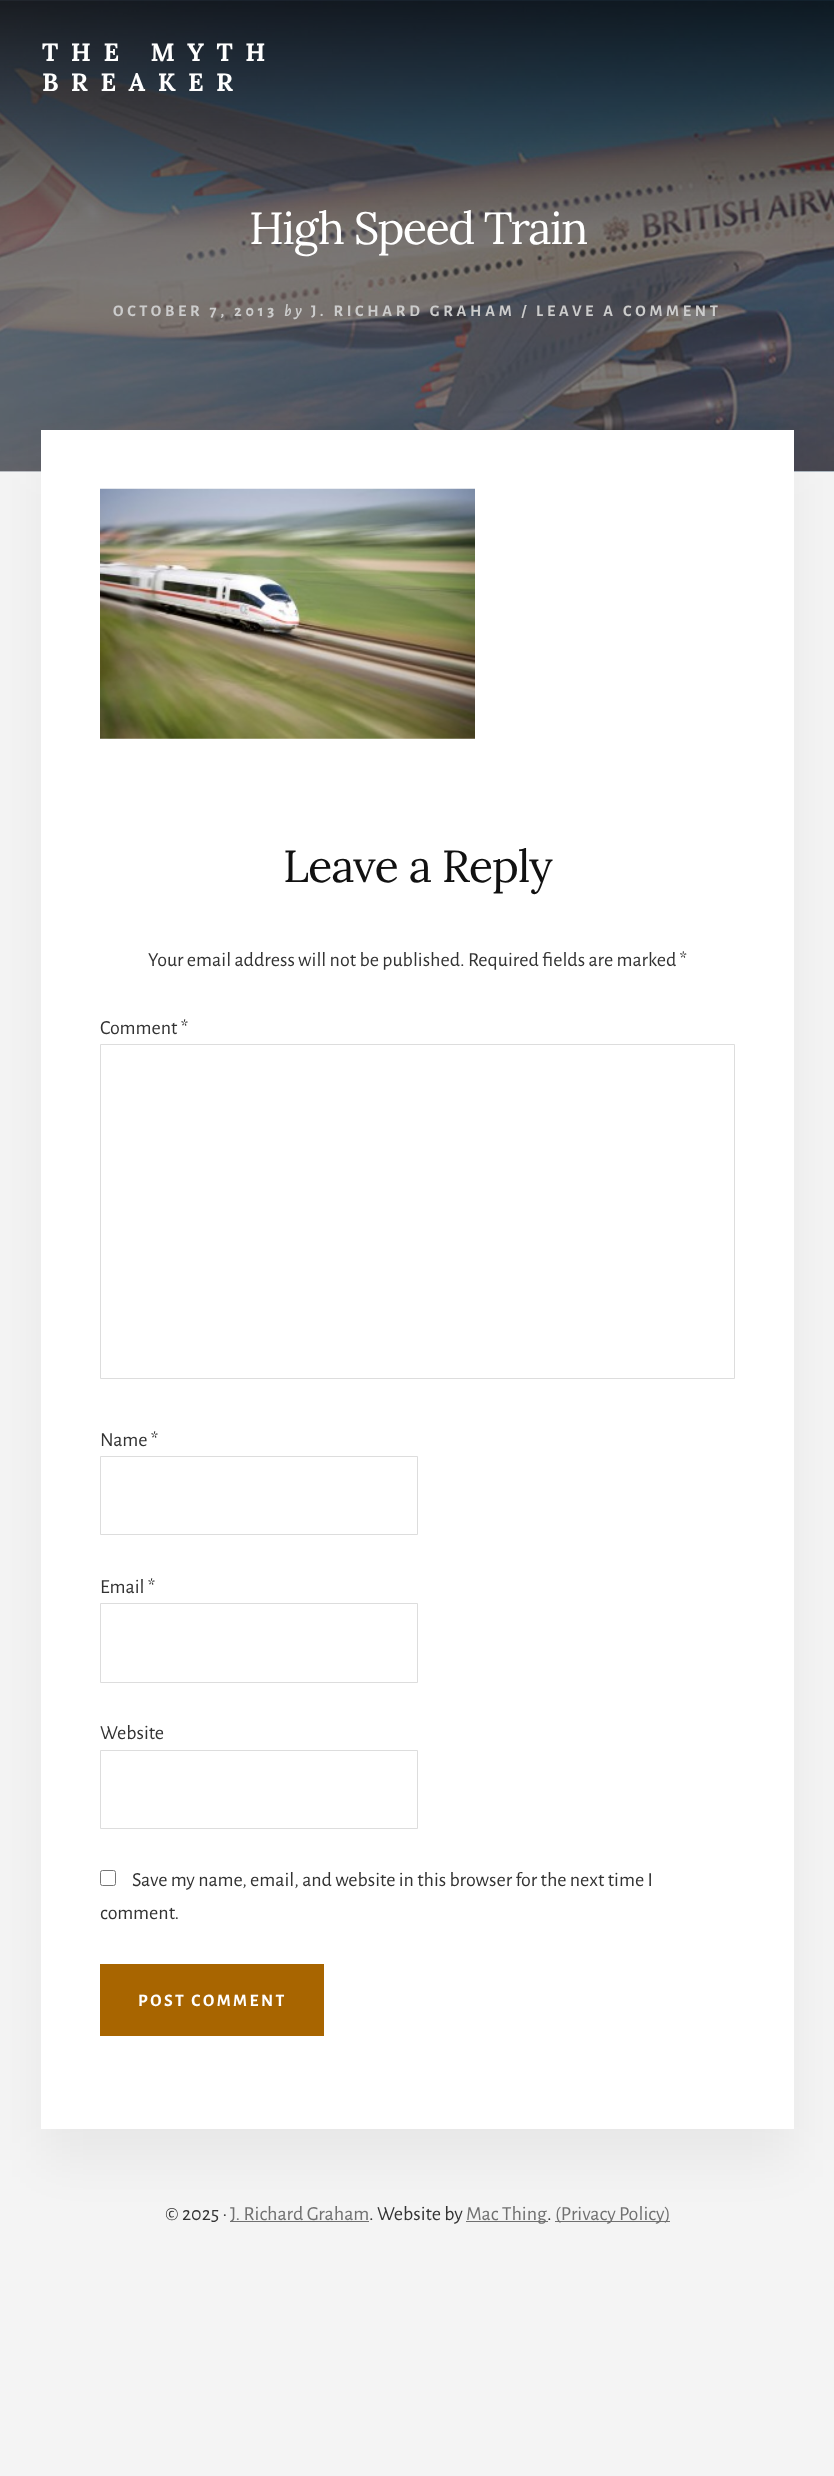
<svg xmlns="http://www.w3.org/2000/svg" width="834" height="2476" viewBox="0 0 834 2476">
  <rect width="100%" height="100%" fill="#f4f4f4"/>
  <image x="0" y="0" width="834" height="472" href="img/1.png"/>
  <path d="M230 2221h139v1H230z" fill="#707070"/>
  <path d="M466 2221h82v1H466z" fill="#707070"/>
  <path d="M555 2221h115v1H555z" fill="#707070"/>
  <path d="M41 461h753v1699H41z" fill="#0000000d" filter="blur(25px)"/>
  <path d="M41 430h753v1699H41z" fill="#fff"/>
  <image x="100" y="488" width="375" height="251" href="img/2.png"/>
  <path d="M100.5 1044.5h634v334H100.5z" fill="none" stroke="#ddd"/>
  <path d="M100.5 1456.5h317v78H100.5z" fill="none" stroke="#ddd"/>
  <path d="M100.5 1603.5h317v79H100.5z" fill="none" stroke="#ddd"/>
  <path d="M100.5 1750.5h317v78H100.5z" fill="none" stroke="#ddd"/>
  <rect x="100.5" y="1870.5" width="15" height="15" rx="2" fill="none" stroke="#767676"/>
  <path d="M100 1964h224v72H100z" fill="#a86500"/>
  <g font-family="Lora" font-size="25" font-weight="bold" letter-spacing="12.5" fill="#fff">
    <text x="42" y="61">THE MYTH</text>
    <text x="42" y="91">BREAKER</text>
  </g>
  <text x="249" y="244" font-family="Lora" font-size="45" letter-spacing="-1.5" fill="#fff">High Speed Train</text>
  <text x="113" y="316" font-family="Alegreya Sans" font-size="16.25" font-weight="bold" letter-spacing="3.75" fill="#ccc">OCTOBER 7, 2013</text>
  <text x="284" y="316" font-family="Alegreya Sans" font-size="16.25" font-weight="bold" font-style="italic" letter-spacing="3.75" fill="#ccc">by</text>
  <text x="311" y="316" font-family="Alegreya Sans" font-size="16.25" font-weight="bold" letter-spacing="3.75" fill="#ccc">J. RICHARD GRAHAM / LEAVE A COMMENT</text>
  <text x="283" y="882" font-family="Lora" font-size="45" letter-spacing="-1" fill="#111">Leave a Reply</text>
  <g font-family="Alegreya Sans" font-size="20" fill="#333">
    <text x="148" y="966">Your email address will not be published. Required fields are marked *</text>
    <text x="100" y="1034">Comment *</text>
    <text x="100" y="1446">Name *</text>
    <text x="100" y="1593">Email *</text>
    <text x="100" y="1739">Website</text>
    <text x="132" y="1886">Save my name, email, and website in this browser for the next time I</text>
    <text x="100" y="1919">comment.</text>
  </g>
  <text x="138" y="2006" font-family="Alegreya Sans" font-size="17.5" font-weight="bold" letter-spacing="2.5" fill="#fff">POST COMMENT</text>
  <text x="165" y="2220" font-family="Alegreya Sans" font-size="20" fill="#333">© 2025 ·</text>
  <text x="230" y="2220" font-family="Alegreya Sans" font-size="20" fill="#707070">J. Richard Graham</text>
  <text x="369" y="2220" font-family="Alegreya Sans" font-size="20" fill="#333">. Website by</text>
  <text x="466" y="2220" font-family="Alegreya Sans" font-size="20" fill="#707070">Mac Thing</text>
  <text x="547" y="2220" font-family="Alegreya Sans" font-size="20" fill="#333">.</text>
  <text x="555" y="2220" font-family="Alegreya Sans" font-size="20" fill="#707070">(Privacy Policy)</text>
</svg>
